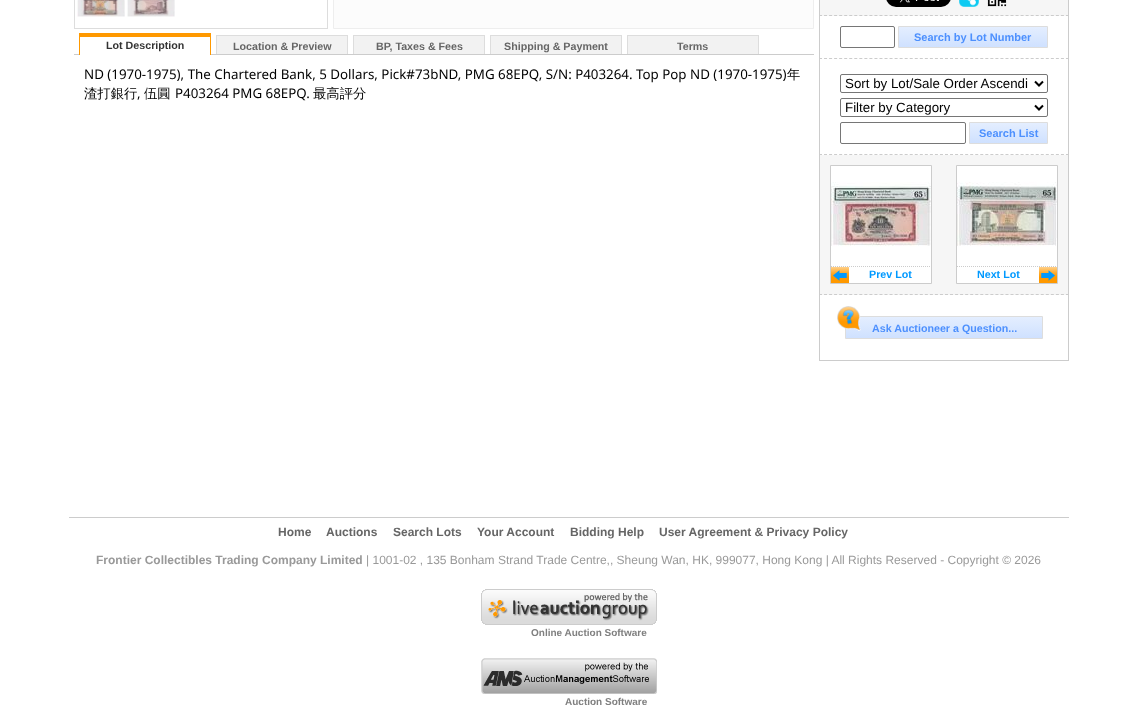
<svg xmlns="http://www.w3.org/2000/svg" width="1138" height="724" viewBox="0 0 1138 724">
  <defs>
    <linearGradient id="g1" gradientUnits="userSpaceOnUse" x1="973" y1="27" x2="973" y2="47"><stop offset="0" stop-color="#e4eeff"/><stop offset="1" stop-color="#cfe1ff"/></linearGradient>
    <linearGradient id="g2" gradientUnits="userSpaceOnUse" x1="1009" y1="123" x2="1009" y2="143"><stop offset="0" stop-color="#e4eeff"/><stop offset="1" stop-color="#cfe1ff"/></linearGradient>
    <linearGradient id="g3" gradientUnits="userSpaceOnUse" x1="944" y1="317" x2="944" y2="338"><stop offset="0" stop-color="#e4eeff"/><stop offset="1" stop-color="#cfe1ff"/></linearGradient>
  </defs>
  <rect width="100%" height="100%" fill="#fff"/>
  <path d="M327 0h1v29H327z" fill="#ddd"/>
  <path d="M74 28h254v1H74z" fill="#ddd"/>
  <path d="M74 0h1v29H74z" fill="#ddd"/>
  <image x="77" y="0" width="48" height="17" href="img/1.png"/>
  <image x="127" y="0" width="48" height="17" href="img/2.png"/>
  <path d="M333.5 -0.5h480v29H333.5z" fill="#fcfcfc" stroke="#eee"/>
  <path d="M74 54h740v1H74z" fill="#ccc"/>
  <path d="M80 54h130v1H80z" fill="#fff"/>
  <path d="M79 33h132v4H79z" fill="#f90"/>
  <path d="M210 33h1v22H210z" fill="#f90"/>
  <path d="M79 33h1v22H79z" fill="#f90"/>
  <path d="M217 36h130v18H217z" fill="#f2f2f2"/>
  <path d="M216 35h132v1H216z" fill="#ddd"/>
  <path d="M347 35h1v19H347z" fill="#ddd"/>
  <path d="M216 35h1v19H216z" fill="#ddd"/>
  <path d="M354 36h130v18H354z" fill="#f2f2f2"/>
  <path d="M353 35h132v1H353z" fill="#ddd"/>
  <path d="M484 35h1v19H484z" fill="#ddd"/>
  <path d="M353 35h1v19H353z" fill="#ddd"/>
  <path d="M491 36h130v18H491z" fill="#f2f2f2"/>
  <path d="M490 35h132v1H490z" fill="#ddd"/>
  <path d="M621 35h1v19H621z" fill="#ddd"/>
  <path d="M490 35h1v19H490z" fill="#ddd"/>
  <path d="M628 36h130v18H628z" fill="#f2f2f2"/>
  <path d="M627 35h132v1H627z" fill="#ddd"/>
  <path d="M758 35h1v19H758z" fill="#ddd"/>
  <path d="M627 35h1v19H627z" fill="#ddd"/>
  <path d="M820 0h248v16H820z" fill="#f6f6f6"/>
  <path d="M1068 0h1v361H1068z" fill="#ccc"/>
  <path d="M819 15.5H1069" fill="none" stroke="#ccc" stroke-dasharray="3 2.04"/>
  <path d="M819 0h1v16H819z" fill="#ccc"/>
  <image x="886" y="0" width="65" height="7" href="img/3.png"/>
  <image x="959" y="0" width="20" height="7" href="img/4.png"/>
  <image x="987" y="0" width="20" height="7" href="img/5.png"/>
  <path d="M819 58.5H1069" fill="none" stroke="#ccc" stroke-dasharray="3 2.04"/>
  <path d="M819 16h1v43H819z" fill="#ccc"/>
  <rect x="840.5" y="26.5" width="54" height="21" rx="1.5" fill="none" stroke="#767676"/>
  <path d="M899 27h148v20H899z" fill="url(#g1)"/>
  <path d="M898.5 26.5h149v21H898.5z" fill="none" stroke="#ddd"/>
  <path d="M819 154.5H1069" fill="none" stroke="#ccc" stroke-dasharray="3 2.04"/>
  <path d="M819 59h1v96H819z" fill="#ccc"/>
  <rect x="840.5" y="74.5" width="207" height="18" rx="1.5" fill="none" stroke="#767676"/>
  <path d="M1035 81.5L1039 85.5L1043 81.5" fill="none" stroke="#000" stroke-width="2"/>
  <rect x="840.5" y="98.5" width="207" height="18" rx="1.5" fill="none" stroke="#767676"/>
  <path d="M1035 105.5L1039 109.5L1043 105.5" fill="none" stroke="#000" stroke-width="2"/>
  <rect x="840.5" y="122.5" width="125" height="21" rx="1.5" fill="none" stroke="#767676"/>
  <path d="M970 123h77v20H970z" fill="url(#g2)"/>
  <path d="M969.5 122.5h78v21H969.5z" fill="none" stroke="#ddd"/>
  <path d="M820 155h248v140H820z" fill="#f6f6f6"/>
  <path d="M819 294.5H1069" fill="none" stroke="#ccc" stroke-dasharray="3 2.04"/>
  <path d="M819 155h1v140H819z" fill="#ccc"/>
  <path d="M830.5 165.5h101v118H830.5z" fill="none" stroke="#ccc"/>
  <image x="831" y="166" width="100" height="100" href="img/6.png"/>
  <path d="M832 266h99v17H832z" fill="#fff"/>
  <path d="M831 266.5H931" fill="none" stroke="#ccc" stroke-dasharray="1 1"/>
  <image x="831" y="267" width="18" height="16" href="img/7.png"/>
  <path d="M956.5 165.5h101v118H956.5z" fill="none" stroke="#ccc"/>
  <image x="957" y="166" width="100" height="100" href="img/8.png"/>
  <path d="M957 266h100v17H957z" fill="#fff"/>
  <path d="M957 266.5H1057" fill="none" stroke="#ccc" stroke-dasharray="1 1"/>
  <image x="1039" y="267" width="18" height="16" href="img/9.png"/>
  <path d="M819 360h250v1H819z" fill="#ccc"/>
  <path d="M819 295h1v66H819z" fill="#ccc"/>
  <path d="M846 317h196v21H846z" fill="url(#g3)"/>
  <path d="M845.5 316.5h197v22H845.5z" fill="none" stroke="#ddd"/>
  <image x="837" y="306" width="24" height="25" href="img/10.png"/>
  <path d="M69 517h1000v1H69z" fill="#ccc"/>
  <image x="481" y="589" width="176" height="36" href="img/11.png"/>
  <image x="481" y="658" width="176" height="36" href="img/12.png"/>
  <text x="106" y="49" font-family="Liberation Sans" font-size="10.7" font-weight="bold" fill="#333">Lot Description</text>
  <g font-family="Liberation Sans" font-size="10.7" font-weight="bold" fill="#666">
    <text x="233" y="50">Location &amp; Preview</text>
    <text x="376" y="50">BP, Taxes &amp; Fees</text>
    <text x="504" y="50">Shipping &amp; Payment</text>
    <text x="677" y="50">Terms</text>
  </g>
  <text x="84" y="79" font-family="Noto Sans" font-size="13.33" fill="#000">ND (1970-1975), The Chartered Bank, 5 Dollars, Pick#73bND, PMG 68EPQ, S/N: P403264. Top Pop ND (1970-1975)</text>
  <g font-family="WenQuanYi Zen Hei" font-size="13.33" font-weight="500" fill="#000">
    <text x="787" y="79">年</text>
    <text x="84" y="98">渣打銀行</text>
  </g>
  <text x="137" y="98" font-family="Noto Sans" font-size="13.33" fill="#000">,</text>
  <text x="144" y="98" font-family="WenQuanYi Zen Hei" font-size="13.33" font-weight="500" fill="#000">伍圓</text>
  <text x="175" y="98" font-family="Noto Sans" font-size="13.33" fill="#000">P403264 PMG 68EPQ.</text>
  <text x="313" y="98" font-family="WenQuanYi Zen Hei" font-size="13.33" font-weight="500" fill="#000">最高評分</text>
  <text x="914" y="41" font-family="Liberation Sans" font-size="11" font-weight="bold" fill="#4d90fe">Search by Lot Number</text>
  <g font-family="Liberation Sans" font-size="13.33" fill="#000">
    <text x="845" y="88">Sort by Lot/Sale Order Ascendi</text>
    <text x="845" y="112">Filter by Category</text>
  </g>
  <text x="979" y="137" font-family="Liberation Sans" font-size="11" font-weight="bold" fill="#4d90fe">Search List</text>
  <g font-family="Liberation Sans" font-size="10.7" font-weight="bold" fill="#09f">
    <text x="869" y="278">Prev Lot</text>
    <text x="977" y="278">Next Lot</text>
  </g>
  <text x="872" y="332" font-family="Liberation Sans" font-size="10.7" font-weight="bold" fill="#4d90fe">Ask Auctioneer a Question...</text>
  <g font-family="Liberation Sans" font-size="12" font-weight="bold" fill="#666">
    <text x="278" y="536">Home</text>
    <text x="326" y="536">Auctions</text>
    <text x="393" y="536">Search Lots</text>
    <text x="477" y="536">Your Account</text>
    <text x="570" y="536">Bidding Help</text>
    <text x="659" y="536">User Agreement &amp; Privacy Policy</text>
  </g>
  <text x="96" y="564" font-family="Liberation Sans" font-size="12" font-weight="bold" fill="#999">Frontier Collectibles Trading Company Limited</text>
  <text x="366" y="564" font-family="Liberation Sans" font-size="12" fill="#999">| 1001-02 , 135 Bonham Strand Trade Centre,, Sheung Wan, HK, 999077, Hong Kong | All Rights Reserved - Copyright © 2026</text>
  <g font-family="Liberation Sans" font-size="10" font-weight="bold" fill="#808080">
    <text x="531" y="636">Online Auction Software</text>
    <text x="565" y="705">Auction Software</text>
  </g>
</svg>
